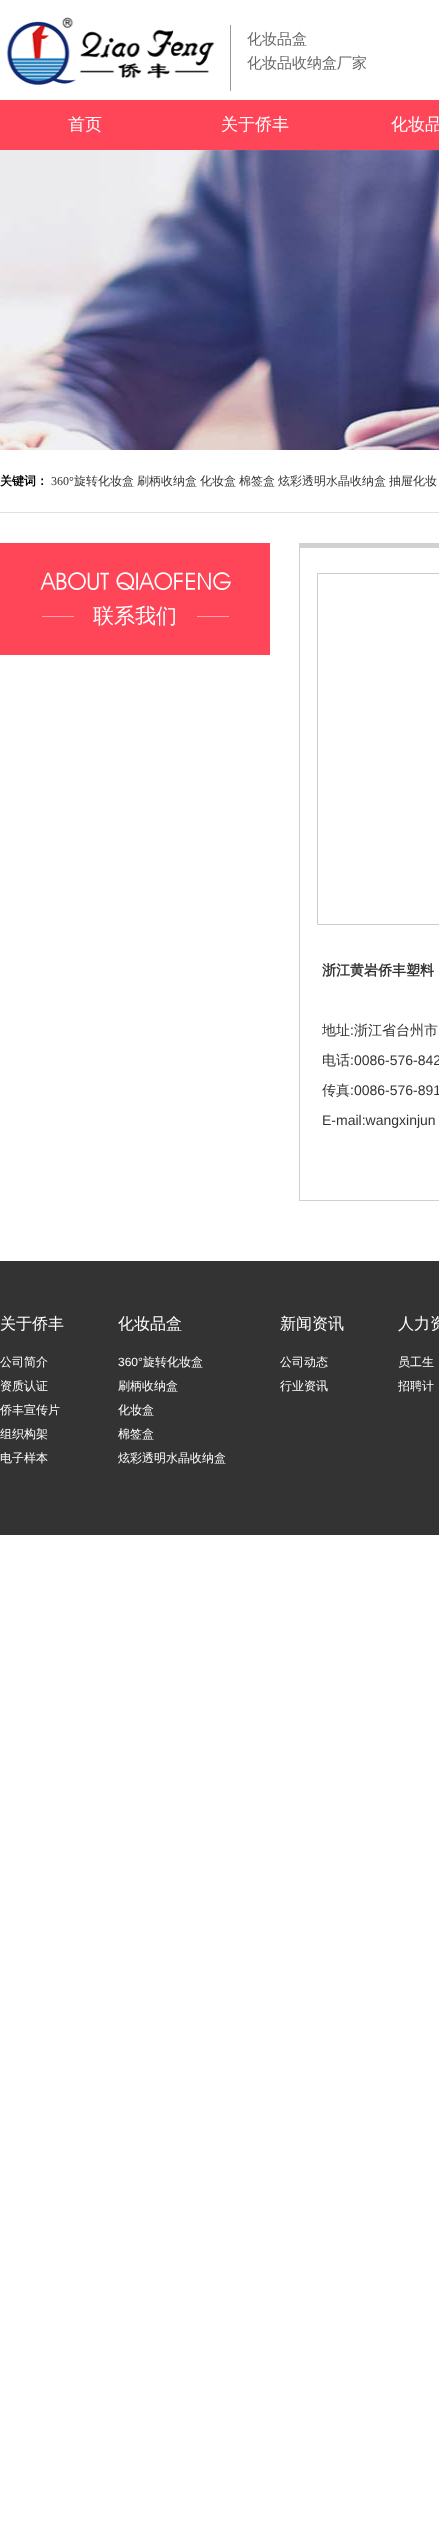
<svg xmlns="http://www.w3.org/2000/svg" width="439" height="2540" viewBox="0 0 439 2540">
  <rect width="100%" height="100%" fill="#fff"/>
  <image x="6" y="17" width="209" height="68" href="img/1.png"/>
  <path d="M230 25h1v66H230z" fill="#999"/>
  <path d="M0 100h439v50H0z" fill="#ff4558"/>
  <image x="0" y="150" width="439" height="300" href="img/2.png"/>
  <path d="M0 512h439v1H0z" fill="#e1e1e1"/>
  <path d="M0 543h270v112H0z" fill="#ff4558"/>
  <image x="40" y="572" width="191" height="18" href="img/3.png"/>
  <image x="42" y="616" width="187" height="1" href="img/4.png"/>
  <path d="M299 543h140v5H299z" fill="#d1d1d1"/>
  <path d="M299 1200h140v1H299z" fill="#d1d1d1"/>
  <path d="M299 543h1v658H299z" fill="#d1d1d1"/>
  <path d="M317.5 573.5h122v351H317.5z" fill="none" stroke="#ccc"/>
  <path d="M0 1261h439v274H0z" fill="#333"/>
  <g font-family="WenQuanYi Zen Hei" font-size="15" font-weight="500" fill="#666">
    <text x="247" y="44">化妆品盒</text>
    <text x="247" y="68">化妆品收纳盒厂家</text>
  </g>
  <g font-family="WenQuanYi Zen Hei" font-size="17" font-weight="500" fill="#fff">
    <text x="68" y="130">首页</text>
    <text x="221" y="130">关于侨丰</text>
    <text x="391" y="130">化妆品</text>
  </g>
  <text x="0" y="485" font-family="WenQuanYi Zen Hei" font-size="12" font-weight="bold" fill="#000">关键词：</text>
  <text x="51" y="485" font-family="Liberation Serif" font-size="12" fill="#333">360°</text>
  <g font-family="WenQuanYi Zen Hei" font-size="12" font-weight="500" fill="#333">
    <text x="74" y="485">旋转化妆盒</text>
    <text x="137" y="485">刷柄收纳盒</text>
    <text x="200" y="485">化妆盒</text>
    <text x="239" y="485">棉签盒</text>
    <text x="278" y="485">炫彩透明水晶收纳盒</text>
    <text x="389" y="485">抽屉化妆</text>
  </g>
  <text x="93" y="623" font-family="WenQuanYi Zen Hei" font-size="21" font-weight="500" fill="#fff">联系我们</text>
  <text x="322" y="975" font-family="WenQuanYi Zen Hei" font-size="14" font-weight="bold" fill="#333">浙江黄岩侨丰塑料</text>
  <text x="322" y="1035" font-family="WenQuanYi Zen Hei" font-size="14" font-weight="500" fill="#333">地址</text>
  <text x="350" y="1035" font-family="Liberation Sans" font-size="14" fill="#333">:</text>
  <g font-family="WenQuanYi Zen Hei" font-size="14" font-weight="500" fill="#333">
    <text x="354" y="1035">浙江省台州市</text>
    <text x="322" y="1065">电话</text>
  </g>
  <text x="350" y="1065" font-family="Liberation Sans" font-size="14" fill="#333">:0086-576-842</text>
  <text x="322" y="1095" font-family="WenQuanYi Zen Hei" font-size="14" font-weight="500" fill="#333">传真</text>
  <g font-family="Liberation Sans" font-size="14" fill="#333">
    <text x="350" y="1095">:0086-576-891</text>
    <text x="322" y="1125">E-mail:wangxinjun</text>
  </g>
  <text x="0" y="1329" font-family="WenQuanYi Zen Hei" font-size="16" font-weight="500" fill="#fff">关于侨丰</text>
  <g font-family="WenQuanYi Zen Hei" font-size="12" font-weight="500" fill="#fff">
    <text x="0" y="1366">公司简介</text>
    <text x="0" y="1390">资质认证</text>
    <text x="0" y="1414">侨丰宣传片</text>
    <text x="0" y="1438">组织构架</text>
    <text x="0" y="1462">电子样本</text>
  </g>
  <text x="118" y="1329" font-family="WenQuanYi Zen Hei" font-size="16" font-weight="500" fill="#fff">化妆品盒</text>
  <text x="118" y="1366" font-family="Liberation Sans" font-size="12" fill="#fff">360°</text>
  <g font-family="WenQuanYi Zen Hei" font-size="12" font-weight="500" fill="#fff">
    <text x="143" y="1366">旋转化妆盒</text>
    <text x="118" y="1390">刷柄收纳盒</text>
    <text x="118" y="1414">化妆盒</text>
    <text x="118" y="1438">棉签盒</text>
    <text x="118" y="1462">炫彩透明水晶收纳盒</text>
  </g>
  <text x="280" y="1329" font-family="WenQuanYi Zen Hei" font-size="16" font-weight="500" fill="#fff">新闻资讯</text>
  <g font-family="WenQuanYi Zen Hei" font-size="12" font-weight="500" fill="#fff">
    <text x="280" y="1366">公司动态</text>
    <text x="280" y="1390">行业资讯</text>
  </g>
  <text x="398" y="1329" font-family="WenQuanYi Zen Hei" font-size="16" font-weight="500" fill="#fff">人力资</text>
  <g font-family="WenQuanYi Zen Hei" font-size="12" font-weight="500" fill="#fff">
    <text x="398" y="1366">员工生</text>
    <text x="398" y="1390">招聘计</text>
  </g>
</svg>
